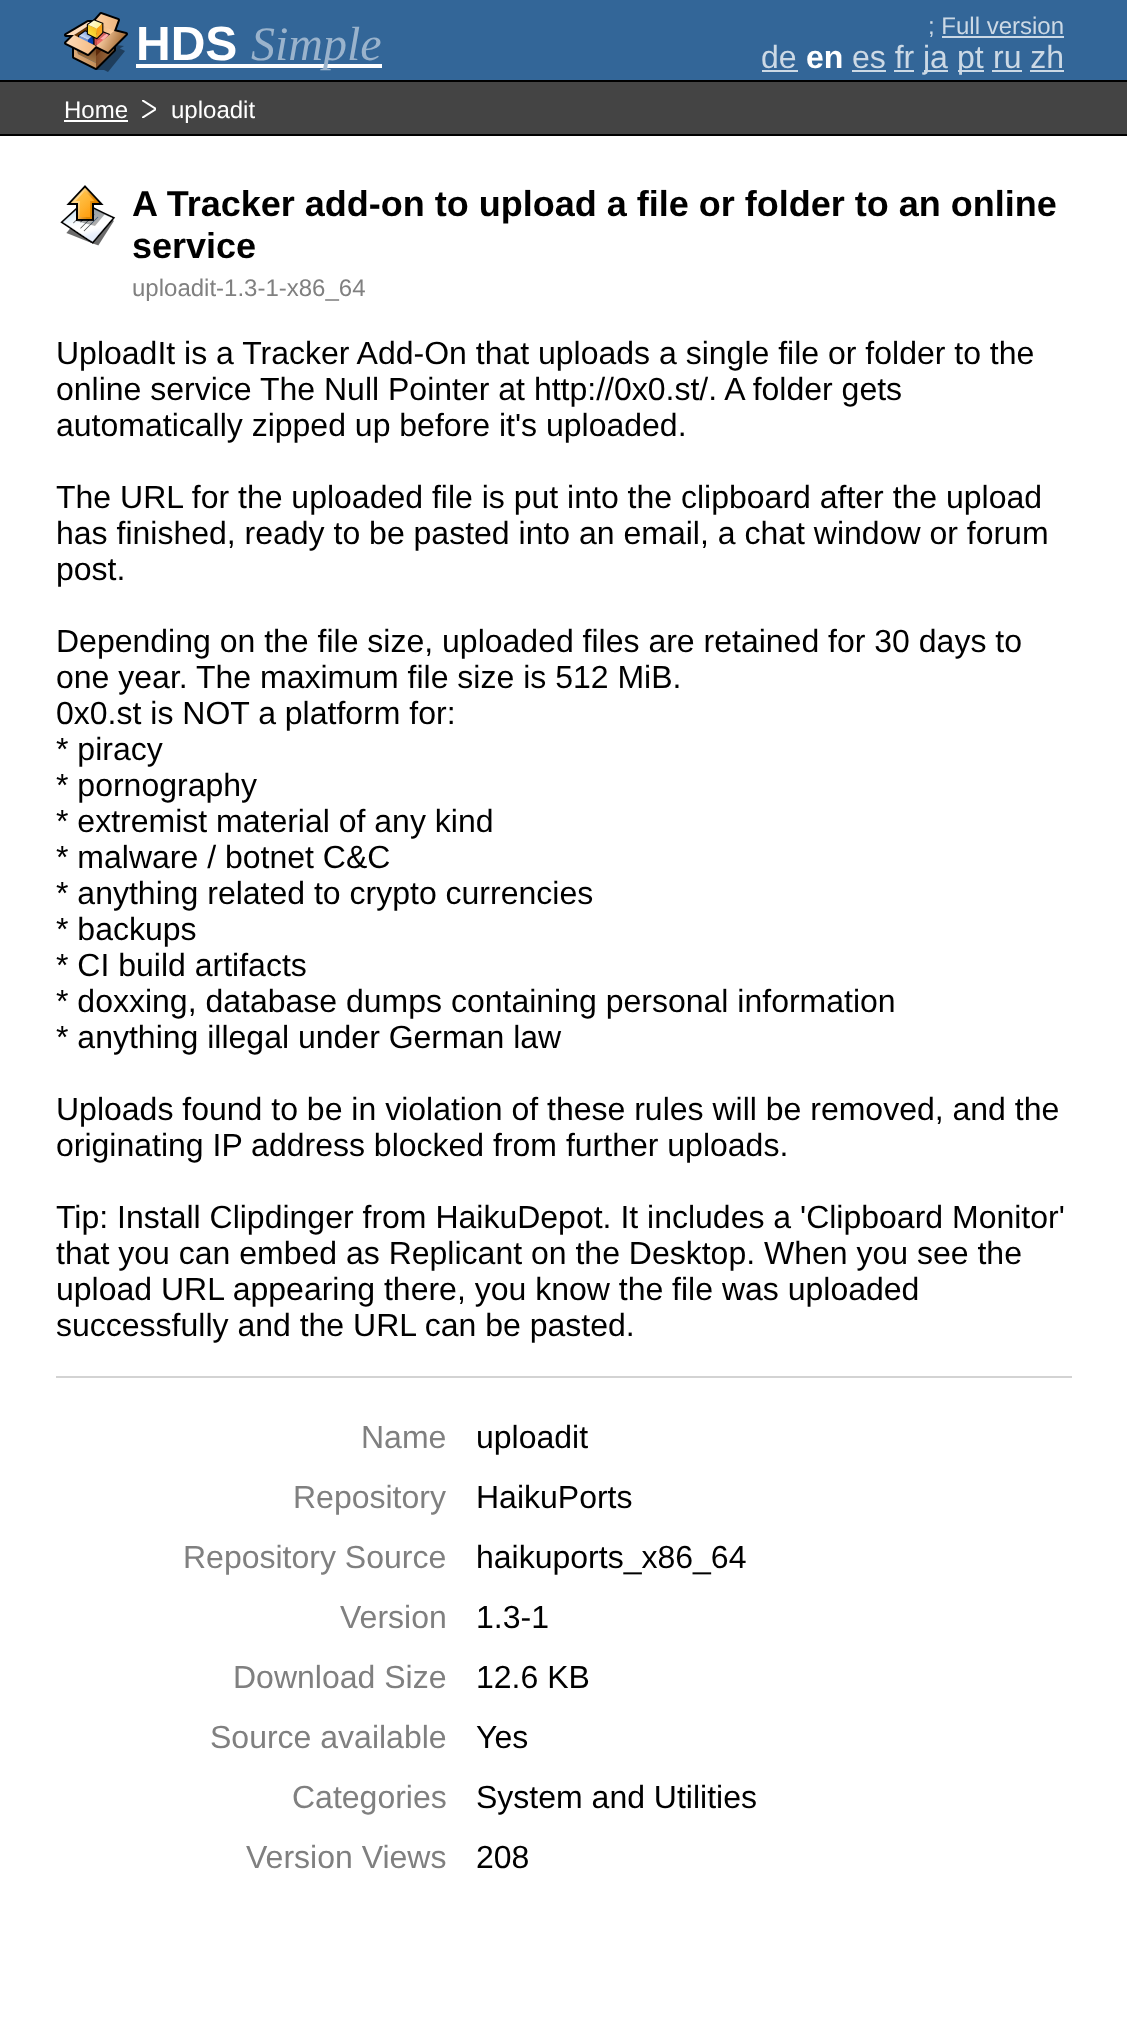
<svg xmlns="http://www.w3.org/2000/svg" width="1127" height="2027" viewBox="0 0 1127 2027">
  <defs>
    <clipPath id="clip1"><path d="M142 100h14v18H142z"/></clipPath>
  </defs>
  <rect width="100%" height="100%" fill="#fff"/>
  <path d="M0 0h1127v80H0z" fill="#336698"/>
  <path d="M0 80h1127v2H0z" fill="#000"/>
  <image x="64" y="12" width="64" height="60" href="img/1.png"/>
  <path d="M136 64h246v4H136z" fill="#fff"/>
  <path d="M942 36h122v2H942z" fill="#ccd9e5"/>
  <path d="M762 70h36v2H762z" fill="#ccd9e5"/>
  <path d="M852 70h34v2H852z" fill="#ccd9e5"/>
  <path d="M894 70h20v2H894z" fill="#ccd9e5"/>
  <path d="M924 70h24v2H924z" fill="#ccd9e5"/>
  <path d="M958 70h26v2H958z" fill="#ccd9e5"/>
  <path d="M992 70h30v2H992z" fill="#ccd9e5"/>
  <path d="M1030 70h34v2H1030z" fill="#ccd9e5"/>
  <path d="M0 82h1127v52H0z" fill="#444"/>
  <path d="M0 134h1127v2H0z" fill="#000"/>
  <path d="M64 120h64v2H64z" fill="#fff"/>
  <g clip-path="url(#clip1)">
    <path d="M142 118L156 109L142 100" fill="none" stroke="#fff" stroke-width="2"/>
  </g>
  <image x="60" y="185" width="56" height="61" href="img/2.png"/>
  <path d="M56 1376h1016v2H56z" fill="#d3d3d3"/>
  <text x="136" y="60" font-family="Liberation Sans" font-size="48" font-weight="bold" fill="#fff">HDS</text>
  <text x="251" y="60" font-family="Liberation Serif" font-size="48" font-style="italic" fill="#9ab3cc">Simple</text>
  <text x="928" y="34" font-family="Liberation Sans" font-size="24" fill="#ccd9e5">; Full version</text>
  <text x="761" y="68" font-family="Liberation Sans" font-size="32" fill="#ccd9e5">de</text>
  <text x="806" y="68" font-family="Liberation Sans" font-size="32" font-weight="bold" fill="#fff">en</text>
  <g font-family="Liberation Sans" font-size="32" fill="#ccd9e5">
    <text x="852" y="68">es fr</text>
    <text x="923" y="68">ja</text>
    <text x="957" y="68">pt</text>
    <text x="993" y="68">ru zh</text>
  </g>
  <g font-family="Liberation Sans" font-size="24" fill="#fff">
    <text x="64" y="118">Home</text>
    <text x="171" y="118">uploadit</text>
  </g>
  <g font-family="Liberation Sans" font-size="36" font-weight="bold" fill="#000">
    <text x="132" y="216">A Tracker add-on to upload a file or folder to an online</text>
    <text x="132" y="258">service</text>
  </g>
  <text x="132" y="296" font-family="Liberation Sans" font-size="24" fill="#808080">uploadit-1.3-1-x86_64</text>
  <g font-family="Liberation Sans" font-size="32" fill="#000">
    <text x="56" y="364">UploadIt is a Tracker Add-On that uploads a single file or folder to the</text>
    <text x="56" y="400">online service The Null Pointer at http://0x0.st/. A folder gets</text>
    <text x="56" y="436">automatically zipped up before it's uploaded.</text>
    <text x="56" y="508">The URL for the uploaded file is put into the clipboard after the upload</text>
    <text x="56" y="544">has finished, ready to be pasted into an email, a chat window or forum</text>
    <text x="56" y="580">post.</text>
    <text x="56" y="652">Depending on the file size, uploaded files are retained for 30 days to</text>
    <text x="56" y="688">one year. The maximum file size is 512 MiB.</text>
    <text x="56" y="724">0x0.st is NOT a platform for:</text>
    <text x="56" y="760">* piracy</text>
    <text x="56" y="796">* pornography</text>
    <text x="56" y="832">* extremist material of any kind</text>
    <text x="56" y="868">* malware / botnet C&amp;C</text>
    <text x="56" y="904">* anything related to crypto currencies</text>
    <text x="56" y="940">* backups</text>
    <text x="56" y="976">* CI build artifacts</text>
    <text x="56" y="1012">* doxxing, database dumps containing personal information</text>
    <text x="56" y="1048">* anything illegal under German law</text>
    <text x="56" y="1120">Uploads found to be in violation of these rules will be removed, and the</text>
    <text x="56" y="1156">originating IP address blocked from further uploads.</text>
    <text x="56" y="1228">Tip: Install Clipdinger from HaikuDepot. It includes a 'Clipboard Monitor'</text>
    <text x="56" y="1264">that you can embed as Replicant on the Desktop. When you see the</text>
    <text x="56" y="1300">upload URL appearing there, you know the file was uploaded</text>
    <text x="56" y="1336">successfully and the URL can be pasted.</text>
  </g>
  <text x="361" y="1448" font-family="Liberation Sans" font-size="32" fill="#808080">Name</text>
  <text x="476" y="1448" font-family="Liberation Sans" font-size="32" fill="#000">uploadit</text>
  <text x="293" y="1508" font-family="Liberation Sans" font-size="32" fill="#808080">Repository</text>
  <text x="476" y="1508" font-family="Liberation Sans" font-size="32" fill="#000">HaikuPorts</text>
  <text x="183" y="1568" font-family="Liberation Sans" font-size="32" fill="#808080">Repository Source</text>
  <text x="476" y="1568" font-family="Liberation Sans" font-size="32" fill="#000">haikuports_x86_64</text>
  <text x="340" y="1628" font-family="Liberation Sans" font-size="32" fill="#808080">Version</text>
  <text x="476" y="1628" font-family="Liberation Sans" font-size="32" fill="#000">1.3-1</text>
  <text x="233" y="1688" font-family="Liberation Sans" font-size="32" fill="#808080">Download Size</text>
  <text x="476" y="1688" font-family="Liberation Sans" font-size="32" fill="#000">12.6 KB</text>
  <text x="210" y="1748" font-family="Liberation Sans" font-size="32" fill="#808080">Source available</text>
  <text x="476" y="1748" font-family="Liberation Sans" font-size="32" fill="#000">Yes</text>
  <text x="292" y="1808" font-family="Liberation Sans" font-size="32" fill="#808080">Categories</text>
  <text x="476" y="1808" font-family="Liberation Sans" font-size="32" fill="#000">System and Utilities</text>
  <text x="246" y="1868" font-family="Liberation Sans" font-size="32" fill="#808080">Version Views</text>
  <text x="476" y="1868" font-family="Liberation Sans" font-size="32" fill="#000">208</text>
</svg>
